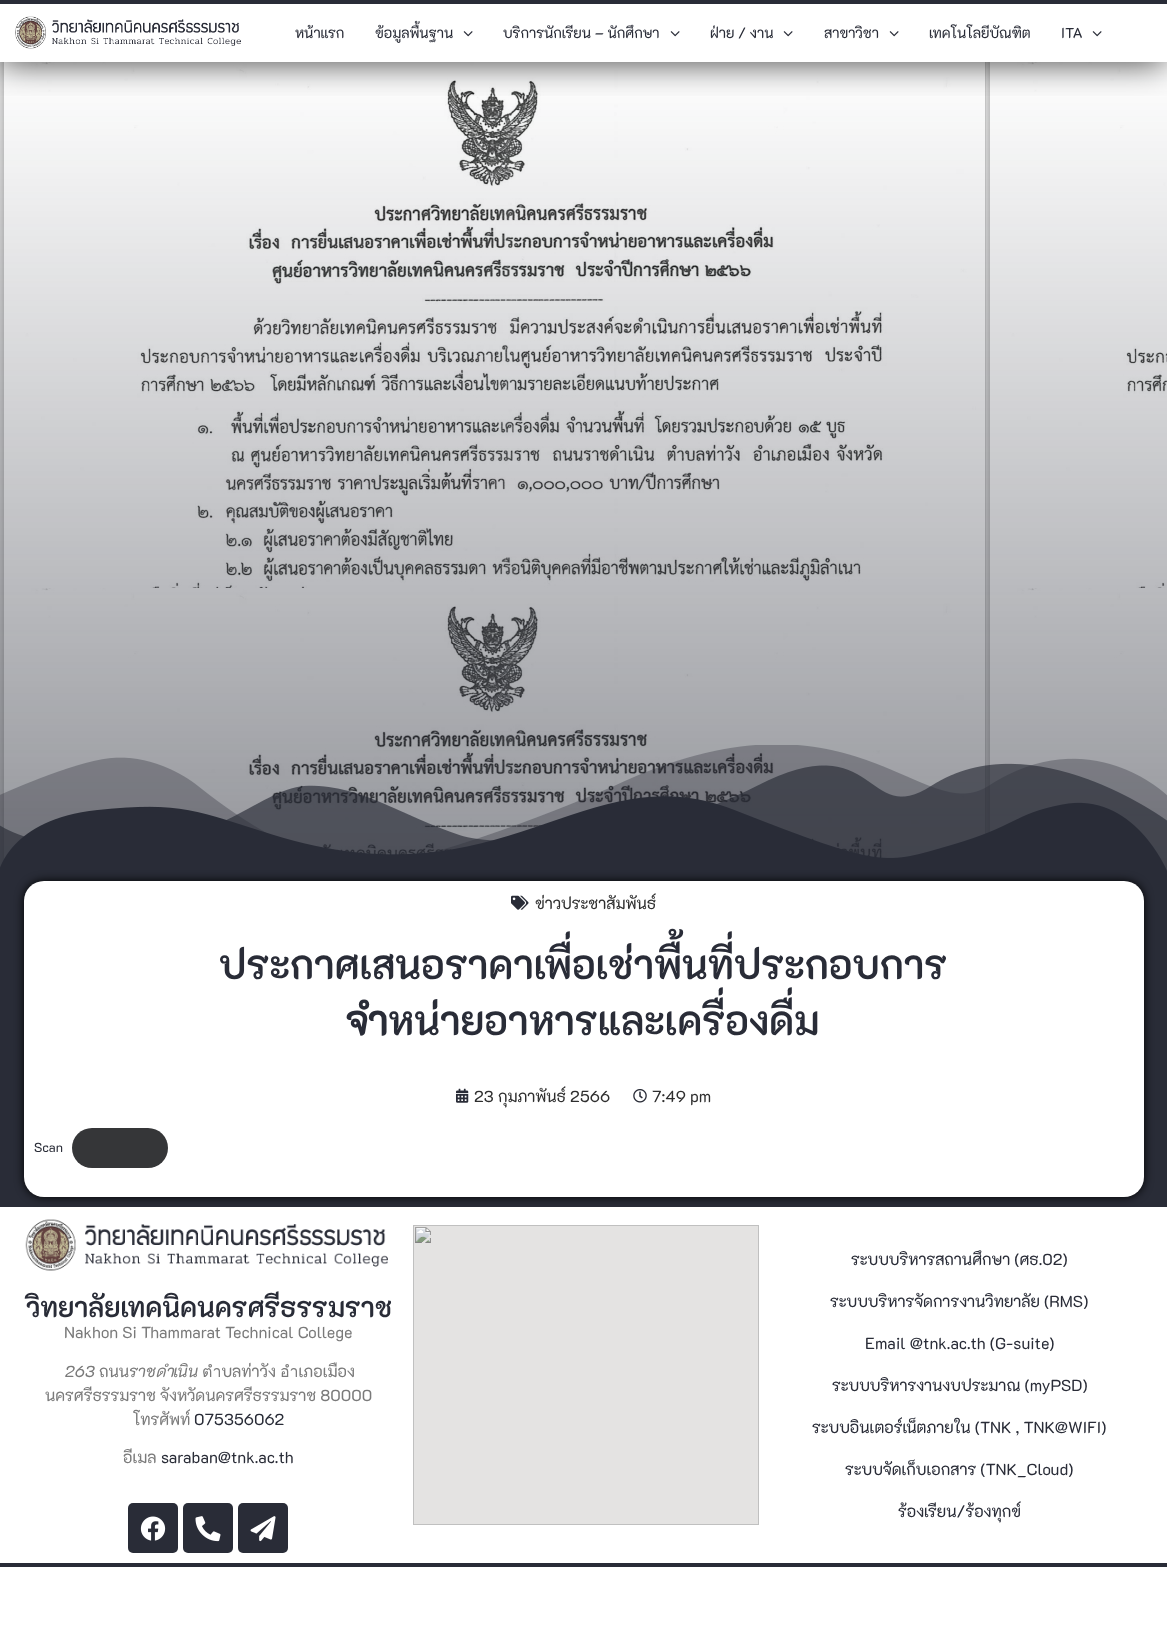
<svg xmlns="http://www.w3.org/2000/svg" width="1167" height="1651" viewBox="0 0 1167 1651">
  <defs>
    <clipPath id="clip1"><path d="M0 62h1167v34H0z"/></clipPath>
  </defs>
  <rect width="100%" height="100%" fill="#fff"/>
  <image x="0" y="62" width="1167" height="809" href="img/3.png"/>
  <g clip-path="url(#clip1)">
    <path d="M-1 1h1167v62H-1z" fill="#000000bf" filter="blur(17px)"/>
  </g>
  <path d="M0 0h1167v4H0z" fill="#292c37"/>
  <image x="15" y="16" width="226" height="33" href="img/1.png"/>
  <image x="463" y="31" width="10" height="6" href="img/2.png"/>
  <image x="670" y="31" width="10" height="6" href="img/2.png"/>
  <image x="783" y="31" width="10" height="6" href="img/2.png"/>
  <image x="889" y="31" width="10" height="6" href="img/2.png"/>
  <image x="1092" y="31" width="10" height="6" href="img/2.png"/>
  <image x="0" y="745" width="1167" height="126" href="img/4.png"/>
  <path d="M0 871h1167v336H0z" fill="#292c37"/>
  <rect x="24" y="881" width="1120" height="316" rx="20" fill="#000000fc" filter="blur(5px)"/>
  <rect x="24" y="881" width="1120" height="316" rx="20" fill="#fff"/>
  <image x="511" y="895" width="18" height="15" href="img/5.png"/>
  <image x="456" y="1088" width="13" height="15" href="img/6.png"/>
  <image x="633" y="1089" width="14" height="14" href="img/7.png"/>
  <rect x="72" y="1128" width="96" height="40" rx="20" fill="#353638"/>
  <path d="M38 1207h1092v2H38z" fill="#fff"/>
  <path d="M0 1563h1167v4H0z" fill="#292c37"/>
  <image x="25" y="1219" width="363" height="52" href="img/8.png"/>
  <rect x="128" y="1503" width="50" height="50" rx="5" fill="#292c37"/>
  <image x="140" y="1516" width="26" height="25" href="img/9.png"/>
  <rect x="183" y="1503" width="50" height="50" rx="5" fill="#292c37"/>
  <image x="195" y="1516" width="26" height="26" href="img/10.png"/>
  <rect x="238" y="1503" width="50" height="50" rx="5" fill="#292c37"/>
  <image x="250" y="1516" width="26" height="26" href="img/11.png"/>
  <image x="413" y="1225" width="346" height="300" href="img/12.png"/>
  <g font-family="'K2D'" font-size="14.4" fill="#292c37">
    <text x="295" y="38">หน้าแรก</text>
    <text x="375" y="38">ข้อมูลพื้นฐาน</text>
    <text x="503" y="38">บริการนักเรียน – นักศึกษา</text>
    <text x="710" y="38">ฝ่าย / งาน</text>
    <text x="824" y="38">สาขาวิชา</text>
    <text x="929" y="38">เทคโนโลยีบัณฑิต</text>
    <text x="1061" y="38">ITA</text>
  </g>
  <text x="535" y="909" font-family="'K2D'" font-size="16" fill="#2e2e2e">ข่าวประชาสัมพันธ์</text>
  <g font-family="'K2D'" font-size="40" font-weight="600" fill="#292c37">
    <text x="219" y="979">ประกาศเสนอราคาเพื่อเช่าพื้นที่ประกอบการ</text>
    <text x="346" y="1035">จำหน่ายอาหารและเครื่องดื่ม</text>
  </g>
  <g font-family="'K2D'" font-size="16" fill="#2e2e2e">
    <text x="474" y="1102">23 กุมภาพันธ์ 2566</text>
    <text x="652" y="1102">7:49 pm</text>
  </g>
  <text x="34" y="1152" font-family="'K2D'" font-size="13" fill="#292c37">Scan</text>
  <text x="26" y="1317" font-family="'K2D'" font-size="27.25" font-weight="600" fill="#292c37">วิทยาลัยเทคนิคนครศรีธรรมราช</text>
  <text x="64" y="1338" font-family="'K2D'" font-size="16" fill="#7a7a7a">Nakhon Si Thammarat Technical College</text>
  <text x="65" y="1377" font-family="'K2D'" font-size="16" font-style="italic" fill="#7a7a7a">263</text>
  <text x="99" y="1377" font-family="'K2D'" font-size="16" fill="#7a7a7a">ถนน</text>
  <text x="129" y="1377" font-family="'K2D'" font-size="16" font-style="italic" fill="#7a7a7a">ราชดำเนิน</text>
  <g font-family="'K2D'" font-size="16" fill="#7a7a7a">
    <text x="202" y="1377">ตำบลท่าวัง อำเภอเมือง</text>
    <text x="45" y="1401">นครศรีธรรมราช จังหวัดนครศรีธรรมราช 80000</text>
    <text x="133" y="1425">โทรศัพท์</text>
  </g>
  <text x="194" y="1425" font-family="'K2D'" font-size="16" fill="#292c37">075356062</text>
  <text x="123" y="1463" font-family="'K2D'" font-size="16" fill="#7a7a7a">อีเมล</text>
  <g font-family="'K2D'" font-size="16" fill="#292c37">
    <text x="161" y="1463">saraban@tnk.ac.th</text>
    <text x="851" y="1265">ระบบบริหารสถานศึกษา (ศธ.02)</text>
    <text x="830" y="1307">ระบบบริหารจัดการงานวิทยาลัย (RMS)</text>
    <text x="865" y="1349">Email @tnk.ac.th (G-suite)</text>
    <text x="832" y="1391">ระบบบริหารงานงบประมาณ (myPSD)</text>
    <text x="812" y="1433">ระบบอินเตอร์เน็ตภายใน (TNK , TNK@WIFI)</text>
    <text x="845" y="1475">ระบบจัดเก็บเอกสาร (TNK_Cloud)</text>
    <text x="898" y="1517">ร้องเรียน/ร้องทุกข์</text>
  </g>
</svg>
